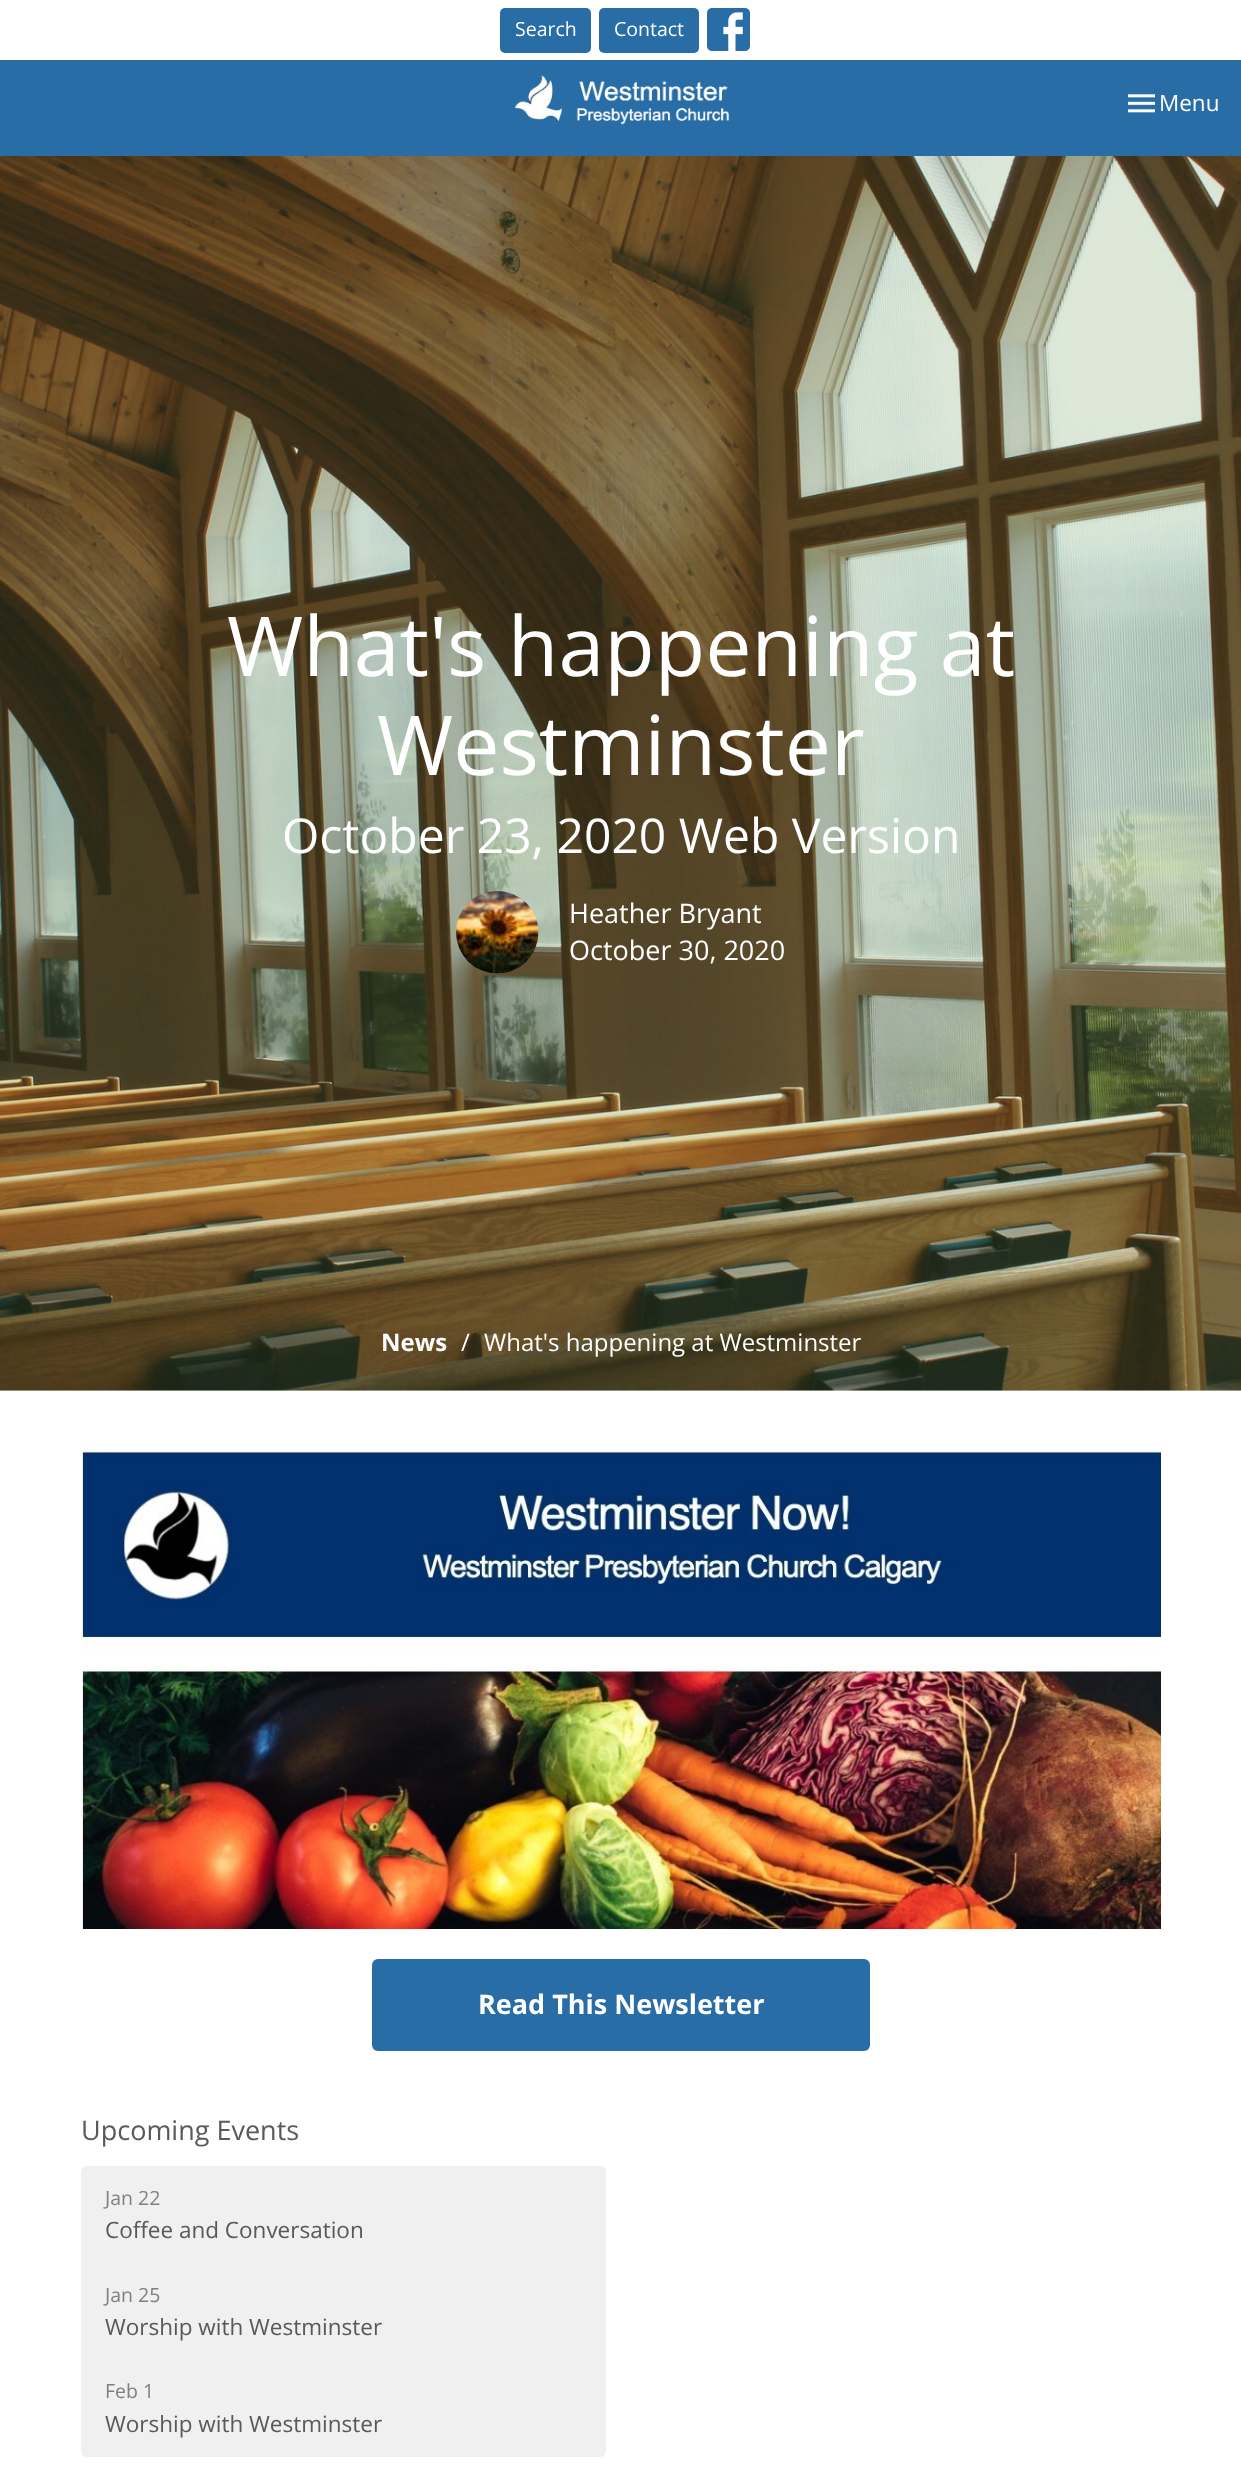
<svg xmlns="http://www.w3.org/2000/svg" width="1241" height="2468" viewBox="0 0 1241 2468">
  <rect width="100%" height="100%" fill="#fff"/>
  <path d="M0 1390h1241v1H0z" fill="#dde9da"/>
  <rect x="500" y="8" width="91" height="45" rx="5" fill="#286da6"/>
  <rect x="599" y="8" width="100" height="45" rx="5" fill="#286da6"/>
  <image x="707" y="8" width="43" height="43" href="img/1.png"/>
  <path d="M0 60h1241v96H0z" fill="#286da6"/>
  <image x="513" y="75" width="216" height="50" href="img/2.png"/>
  <image x="1128" y="94" width="27" height="19" href="img/3.png"/>
  <image x="0" y="156" width="1241" height="1235" href="img/4.png"/>
  <image x="456" y="891" width="83" height="83" href="img/5.png"/>
  <image x="81" y="1450" width="1080" height="479" href="img/6.png"/>
  <rect x="372" y="1959" width="498" height="92" rx="6" fill="#286da6"/>
  <path d="M87 2166H600C603.5 2166 606 2168.5 606 2172V2264H81V2172C81 2168.5 83.5 2166 87 2166Z" fill="#f0f0f0"/>
  <path d="M81 2264h525v96H81z" fill="#f0f0f0"/>
  <path d="M81 2360H606V2451C606 2454.5 603.5 2457 600 2457H87C83.5 2457 81 2454.5 81 2451Z" fill="#f0f0f0"/>
  <g font-family="Open Sans" font-size="19.5" fill="#fff">
    <text x="515" y="36">Search</text>
    <text x="614" y="36">Contact</text>
  </g>
  <text x="1159" y="111" font-family="Open Sans" font-size="22.5" fill="#fff">Menu</text>
  <g font-family="Open Sans" font-size="82.5" fill="#fff">
    <text x="227" y="676">What's happening at</text>
    <text x="377" y="775">Westminster</text>
  </g>
  <text x="282" y="853" font-family="Open Sans" font-size="48" fill="#fff">October 23, 2020 Web Version</text>
  <g font-family="Open Sans" font-size="27" fill="#fff">
    <text x="569" y="923">Heather Bryant</text>
    <text x="569" y="960">October 30, 2020</text>
  </g>
  <text x="381" y="1351" font-family="Open Sans" font-size="24" font-weight="bold" fill="#fff">News</text>
  <g font-family="Open Sans" font-size="24" fill="#fff">
    <text x="461" y="1351">/</text>
    <text x="484" y="1351">What's happening at Westminster</text>
  </g>
  <text x="478" y="2014" font-family="Open Sans" font-size="27" font-weight="bold" fill="#fff">Read This Newsletter</text>
  <text x="81" y="2140" font-family="Open Sans" font-size="27" fill="#595959">Upcoming Events</text>
  <text x="105" y="2205" font-family="Open Sans" font-size="19.5" fill="#808080">Jan 22</text>
  <text x="105" y="2238" font-family="Open Sans" font-size="22.5" fill="#595959">Coffee and Conversation</text>
  <text x="105" y="2302" font-family="Open Sans" font-size="19.5" fill="#808080">Jan 25</text>
  <text x="105" y="2335" font-family="Open Sans" font-size="22.5" fill="#595959">Worship with Westminster</text>
  <text x="105" y="2398" font-family="Open Sans" font-size="19.5" fill="#808080">Feb 1</text>
  <text x="105" y="2432" font-family="Open Sans" font-size="22.5" fill="#595959">Worship with Westminster</text>
</svg>
